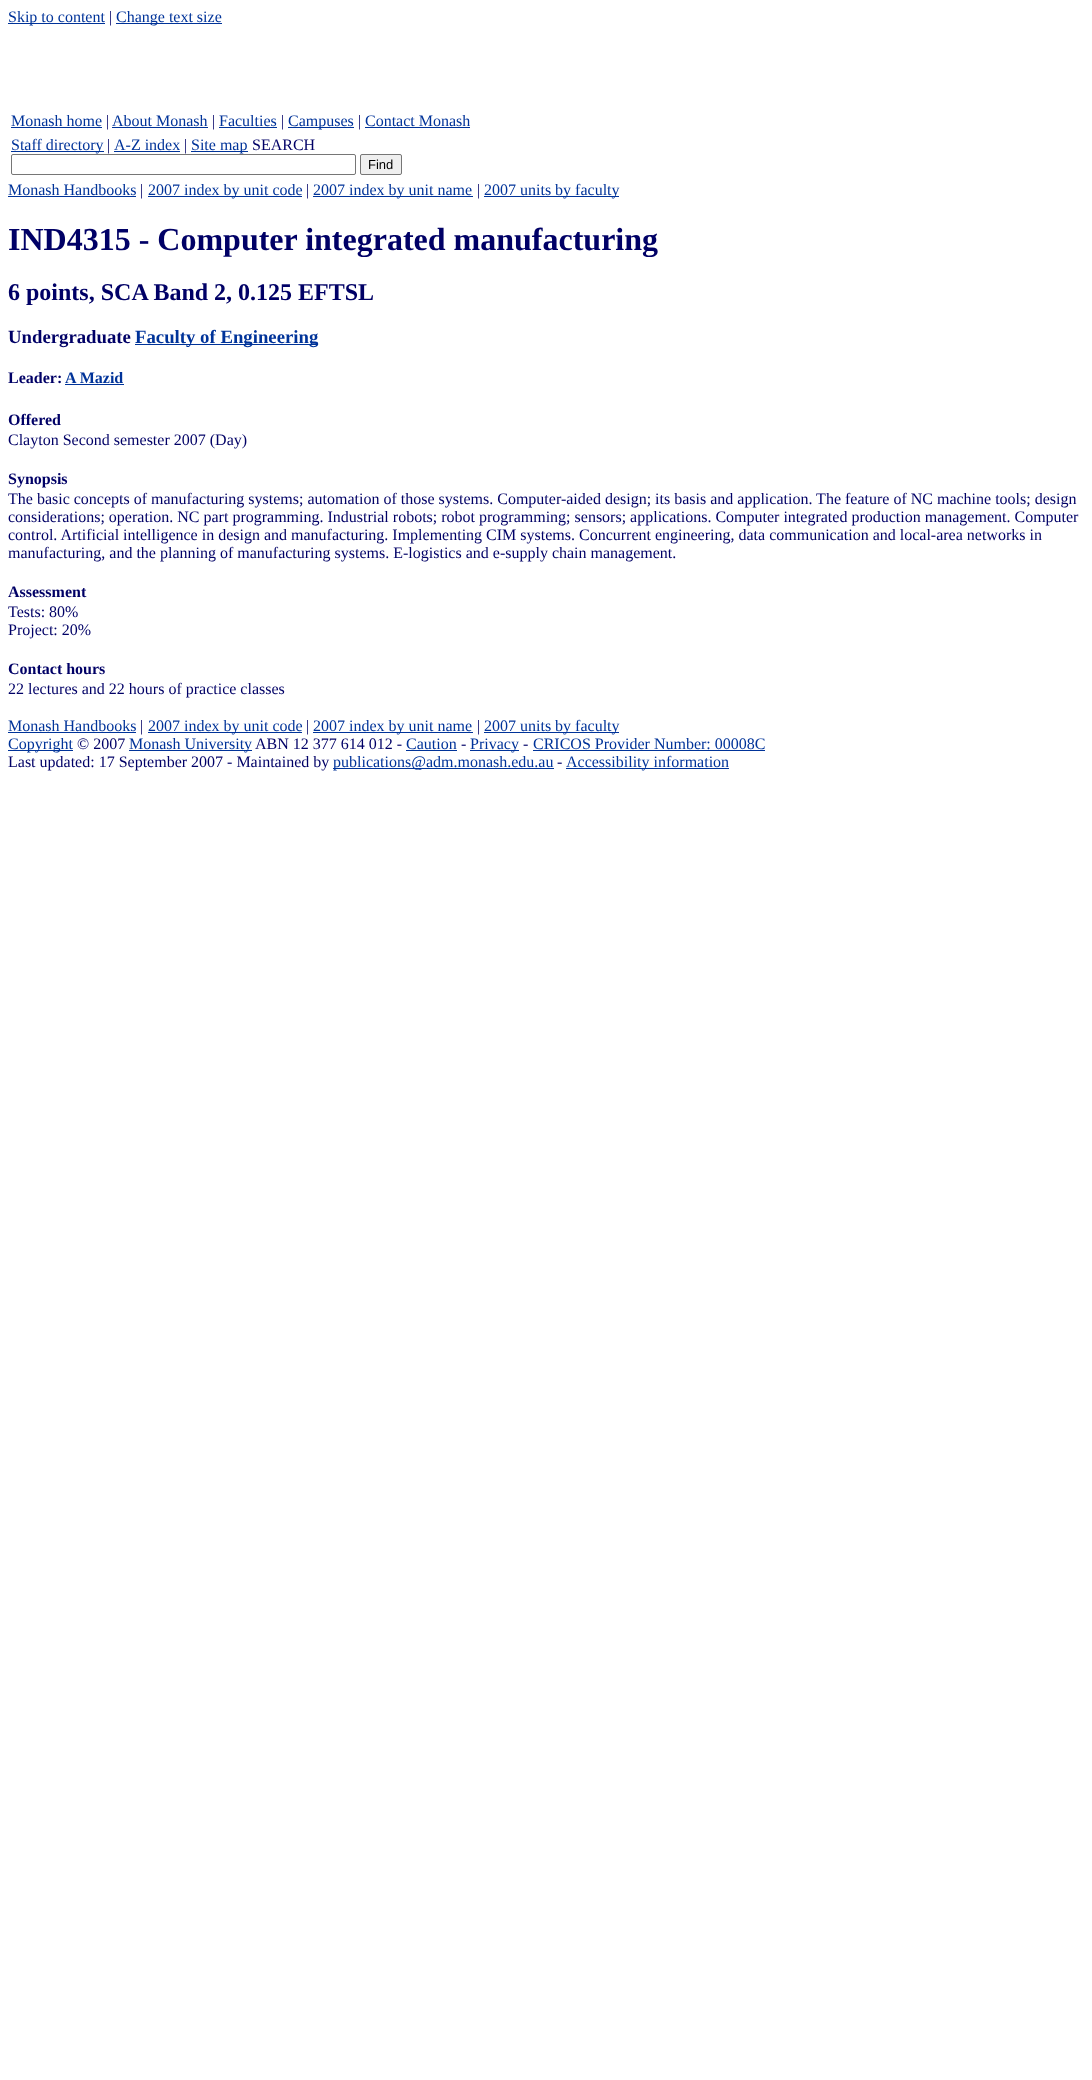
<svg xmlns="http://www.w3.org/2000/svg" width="1092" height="2080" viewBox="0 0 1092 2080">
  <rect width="100%" height="100%" fill="#fff"/>
  <path d="M8 23h97v1H8z" fill="#039"/>
  <path d="M116 23h106v1H116z" fill="#039"/>
  <path d="M11 127h91v1H11z" fill="#039"/>
  <path d="M112 127h96v1H112z" fill="#039"/>
  <path d="M219 127h58v1H219z" fill="#039"/>
  <path d="M288 127h66v1H288z" fill="#039"/>
  <path d="M365 127h105v1H365z" fill="#039"/>
  <path d="M11 151h93v1H11z" fill="#039"/>
  <path d="M114 151h66v1H114z" fill="#039"/>
  <path d="M191 151h57v1H191z" fill="#039"/>
  <rect x="11.5" y="154.5" width="344" height="20" rx="1.5" fill="none" stroke="#767676"/>
  <rect x="360.5" y="154.5" width="41" height="20" rx="1.5" fill="#efefef" stroke="#767676"/>
  <path d="M8 196h128v1H8z" fill="#039"/>
  <path d="M148 196h154v1H148z" fill="#039"/>
  <path d="M313 196h160v1H313z" fill="#039"/>
  <path d="M484 196h135v1H484z" fill="#039"/>
  <path d="M135 344h183v1H135z" fill="#039"/>
  <path d="M65 384h59v1H65z" fill="#039"/>
  <path d="M8 732h128v1H8z" fill="#039"/>
  <path d="M148 732h154v1H148z" fill="#039"/>
  <path d="M313 732h160v1H313z" fill="#039"/>
  <path d="M484 732h135v1H484z" fill="#039"/>
  <path d="M8 750h65v1H8z" fill="#039"/>
  <path d="M129 750h123v1H129z" fill="#039"/>
  <path d="M406 750h51v1H406z" fill="#039"/>
  <path d="M470 750h49v1H470z" fill="#039"/>
  <path d="M533 750h232v1H533z" fill="#039"/>
  <path d="M333 768h221v1H333z" fill="#039"/>
  <path d="M566 768h163v1H566z" fill="#039"/>
  <text x="8" y="22" font-family="Liberation Serif" font-size="16" fill="#039">Skip to content</text>
  <text x="109" y="22" font-family="Liberation Serif" font-size="16" fill="#006">|</text>
  <g font-family="Liberation Serif" font-size="16" fill="#039">
    <text x="116" y="22">Change text size</text>
    <text x="11" y="126">Monash home</text>
  </g>
  <text x="106" y="126" font-family="Liberation Serif" font-size="16" fill="#006">|</text>
  <text x="112" y="126" font-family="Liberation Serif" font-size="16" fill="#039">About Monash</text>
  <text x="212" y="126" font-family="Liberation Serif" font-size="16" fill="#006">|</text>
  <text x="219" y="126" font-family="Liberation Serif" font-size="16" fill="#039">Faculties</text>
  <text x="281" y="126" font-family="Liberation Serif" font-size="16" fill="#006">|</text>
  <text x="288" y="126" font-family="Liberation Serif" font-size="16" fill="#039">Campuses</text>
  <text x="358" y="126" font-family="Liberation Serif" font-size="16" fill="#006">|</text>
  <g font-family="Liberation Serif" font-size="16" fill="#039">
    <text x="365" y="126">Contact Monash</text>
    <text x="11" y="150">Staff directory</text>
  </g>
  <text x="107" y="150" font-family="Liberation Serif" font-size="16" fill="#006">|</text>
  <text x="114" y="150" font-family="Liberation Serif" font-size="16" fill="#039">A-Z index</text>
  <text x="184" y="150" font-family="Liberation Serif" font-size="16" fill="#006">|</text>
  <text x="191" y="150" font-family="Liberation Serif" font-size="16" fill="#039">Site map</text>
  <text x="252" y="150" font-family="Liberation Serif" font-size="16" fill="#006">SEARCH</text>
  <text x="368" y="169" font-family="Liberation Sans" font-size="13" fill="#000">Find</text>
  <text x="8" y="195" font-family="Liberation Serif" font-size="16" fill="#039">Monash Handbooks</text>
  <text x="140" y="195" font-family="Liberation Serif" font-size="16" fill="#006">|</text>
  <text x="148" y="195" font-family="Liberation Serif" font-size="16" fill="#039">2007 index by unit code</text>
  <text x="306" y="195" font-family="Liberation Serif" font-size="16" fill="#006">|</text>
  <text x="313" y="195" font-family="Liberation Serif" font-size="16" fill="#039">2007 index by unit name</text>
  <text x="477" y="195" font-family="Liberation Serif" font-size="16" fill="#006">|</text>
  <text x="484" y="195" font-family="Liberation Serif" font-size="16" fill="#039">2007 units by faculty</text>
  <text x="8" y="250" font-family="Liberation Serif" font-size="32" font-weight="bold" fill="#006">IND4315 - Computer integrated manufacturing</text>
  <text x="8" y="300" font-family="Liberation Serif" font-size="24" font-weight="bold" fill="#006">6 points, SCA Band 2, 0.125 EFTSL</text>
  <text x="8" y="343" font-family="Liberation Serif" font-size="18.75" font-weight="bold" fill="#006">Undergraduate</text>
  <text x="135" y="343" font-family="Liberation Serif" font-size="18.75" font-weight="bold" fill="#039">Faculty of Engineering</text>
  <text x="8" y="383" font-family="Liberation Serif" font-size="16" font-weight="bold" fill="#006">Leader:</text>
  <text x="65" y="383" font-family="Liberation Serif" font-size="16" font-weight="bold" fill="#039">A Mazid</text>
  <text x="8" y="425" font-family="Liberation Serif" font-size="16" font-weight="bold" fill="#006">Offered</text>
  <text x="8" y="445" font-family="Liberation Serif" font-size="16" fill="#006">Clayton Second semester 2007 (Day)</text>
  <text x="8" y="484" font-family="Liberation Serif" font-size="16" font-weight="bold" fill="#006">Synopsis</text>
  <g font-family="Liberation Serif" font-size="16" fill="#006">
    <text x="8" y="504">The basic concepts of manufacturing systems; automation of those systems. Computer-aided design; its basis and application. The feature of NC machine tools; design</text>
    <text x="8" y="522">considerations; operation. NC part programming. Industrial robots; robot programming; sensors; applications. Computer integrated production management. Computer</text>
    <text x="8" y="540">control. Artificial intelligence in design and manufacturing. Implementing CIM systems. Concurrent engineering, data communication and local-area networks in</text>
    <text x="8" y="558">manufacturing, and the planning of manufacturing systems. E-logistics and e-supply chain management.</text>
  </g>
  <text x="8" y="597" font-family="Liberation Serif" font-size="16" font-weight="bold" fill="#006">Assessment</text>
  <g font-family="Liberation Serif" font-size="16" fill="#006">
    <text x="8" y="617">Tests: 80%</text>
    <text x="8" y="635">Project: 20%</text>
  </g>
  <text x="8" y="674" font-family="Liberation Serif" font-size="16" font-weight="bold" fill="#006">Contact hours</text>
  <text x="8" y="694" font-family="Liberation Serif" font-size="16" fill="#006">22 lectures and 22 hours of practice classes</text>
  <text x="8" y="731" font-family="Liberation Serif" font-size="16" fill="#039">Monash Handbooks</text>
  <text x="140" y="731" font-family="Liberation Serif" font-size="16" fill="#006">|</text>
  <text x="148" y="731" font-family="Liberation Serif" font-size="16" fill="#039">2007 index by unit code</text>
  <text x="306" y="731" font-family="Liberation Serif" font-size="16" fill="#006">|</text>
  <text x="313" y="731" font-family="Liberation Serif" font-size="16" fill="#039">2007 index by unit name</text>
  <text x="477" y="731" font-family="Liberation Serif" font-size="16" fill="#006">|</text>
  <g font-family="Liberation Serif" font-size="16" fill="#039">
    <text x="484" y="731">2007 units by faculty</text>
    <text x="8" y="749">Copyright</text>
  </g>
  <text x="77" y="749" font-family="Liberation Serif" font-size="16" fill="#006">© 2007</text>
  <text x="129" y="749" font-family="Liberation Serif" font-size="16" fill="#039">Monash University</text>
  <text x="255" y="749" font-family="Liberation Serif" font-size="16" fill="#006">ABN 12 377 614 012 -</text>
  <text x="406" y="749" font-family="Liberation Serif" font-size="16" fill="#039">Caution</text>
  <text x="461" y="749" font-family="Liberation Serif" font-size="16" fill="#006">-</text>
  <text x="470" y="749" font-family="Liberation Serif" font-size="16" fill="#039">Privacy</text>
  <text x="523" y="749" font-family="Liberation Serif" font-size="16" fill="#006">-</text>
  <text x="533" y="749" font-family="Liberation Serif" font-size="16" fill="#039">CRICOS Provider Number: 00008C</text>
  <text x="8" y="767" font-family="Liberation Serif" font-size="16" fill="#006">Last updated: 17 September 2007 - Maintained by</text>
  <text x="333" y="767" font-family="Liberation Serif" font-size="16" fill="#039">publications@adm.monash.edu.au</text>
  <text x="557" y="767" font-family="Liberation Serif" font-size="16" fill="#006">-</text>
  <text x="566" y="767" font-family="Liberation Serif" font-size="16" fill="#039">Accessibility information</text>
</svg>
